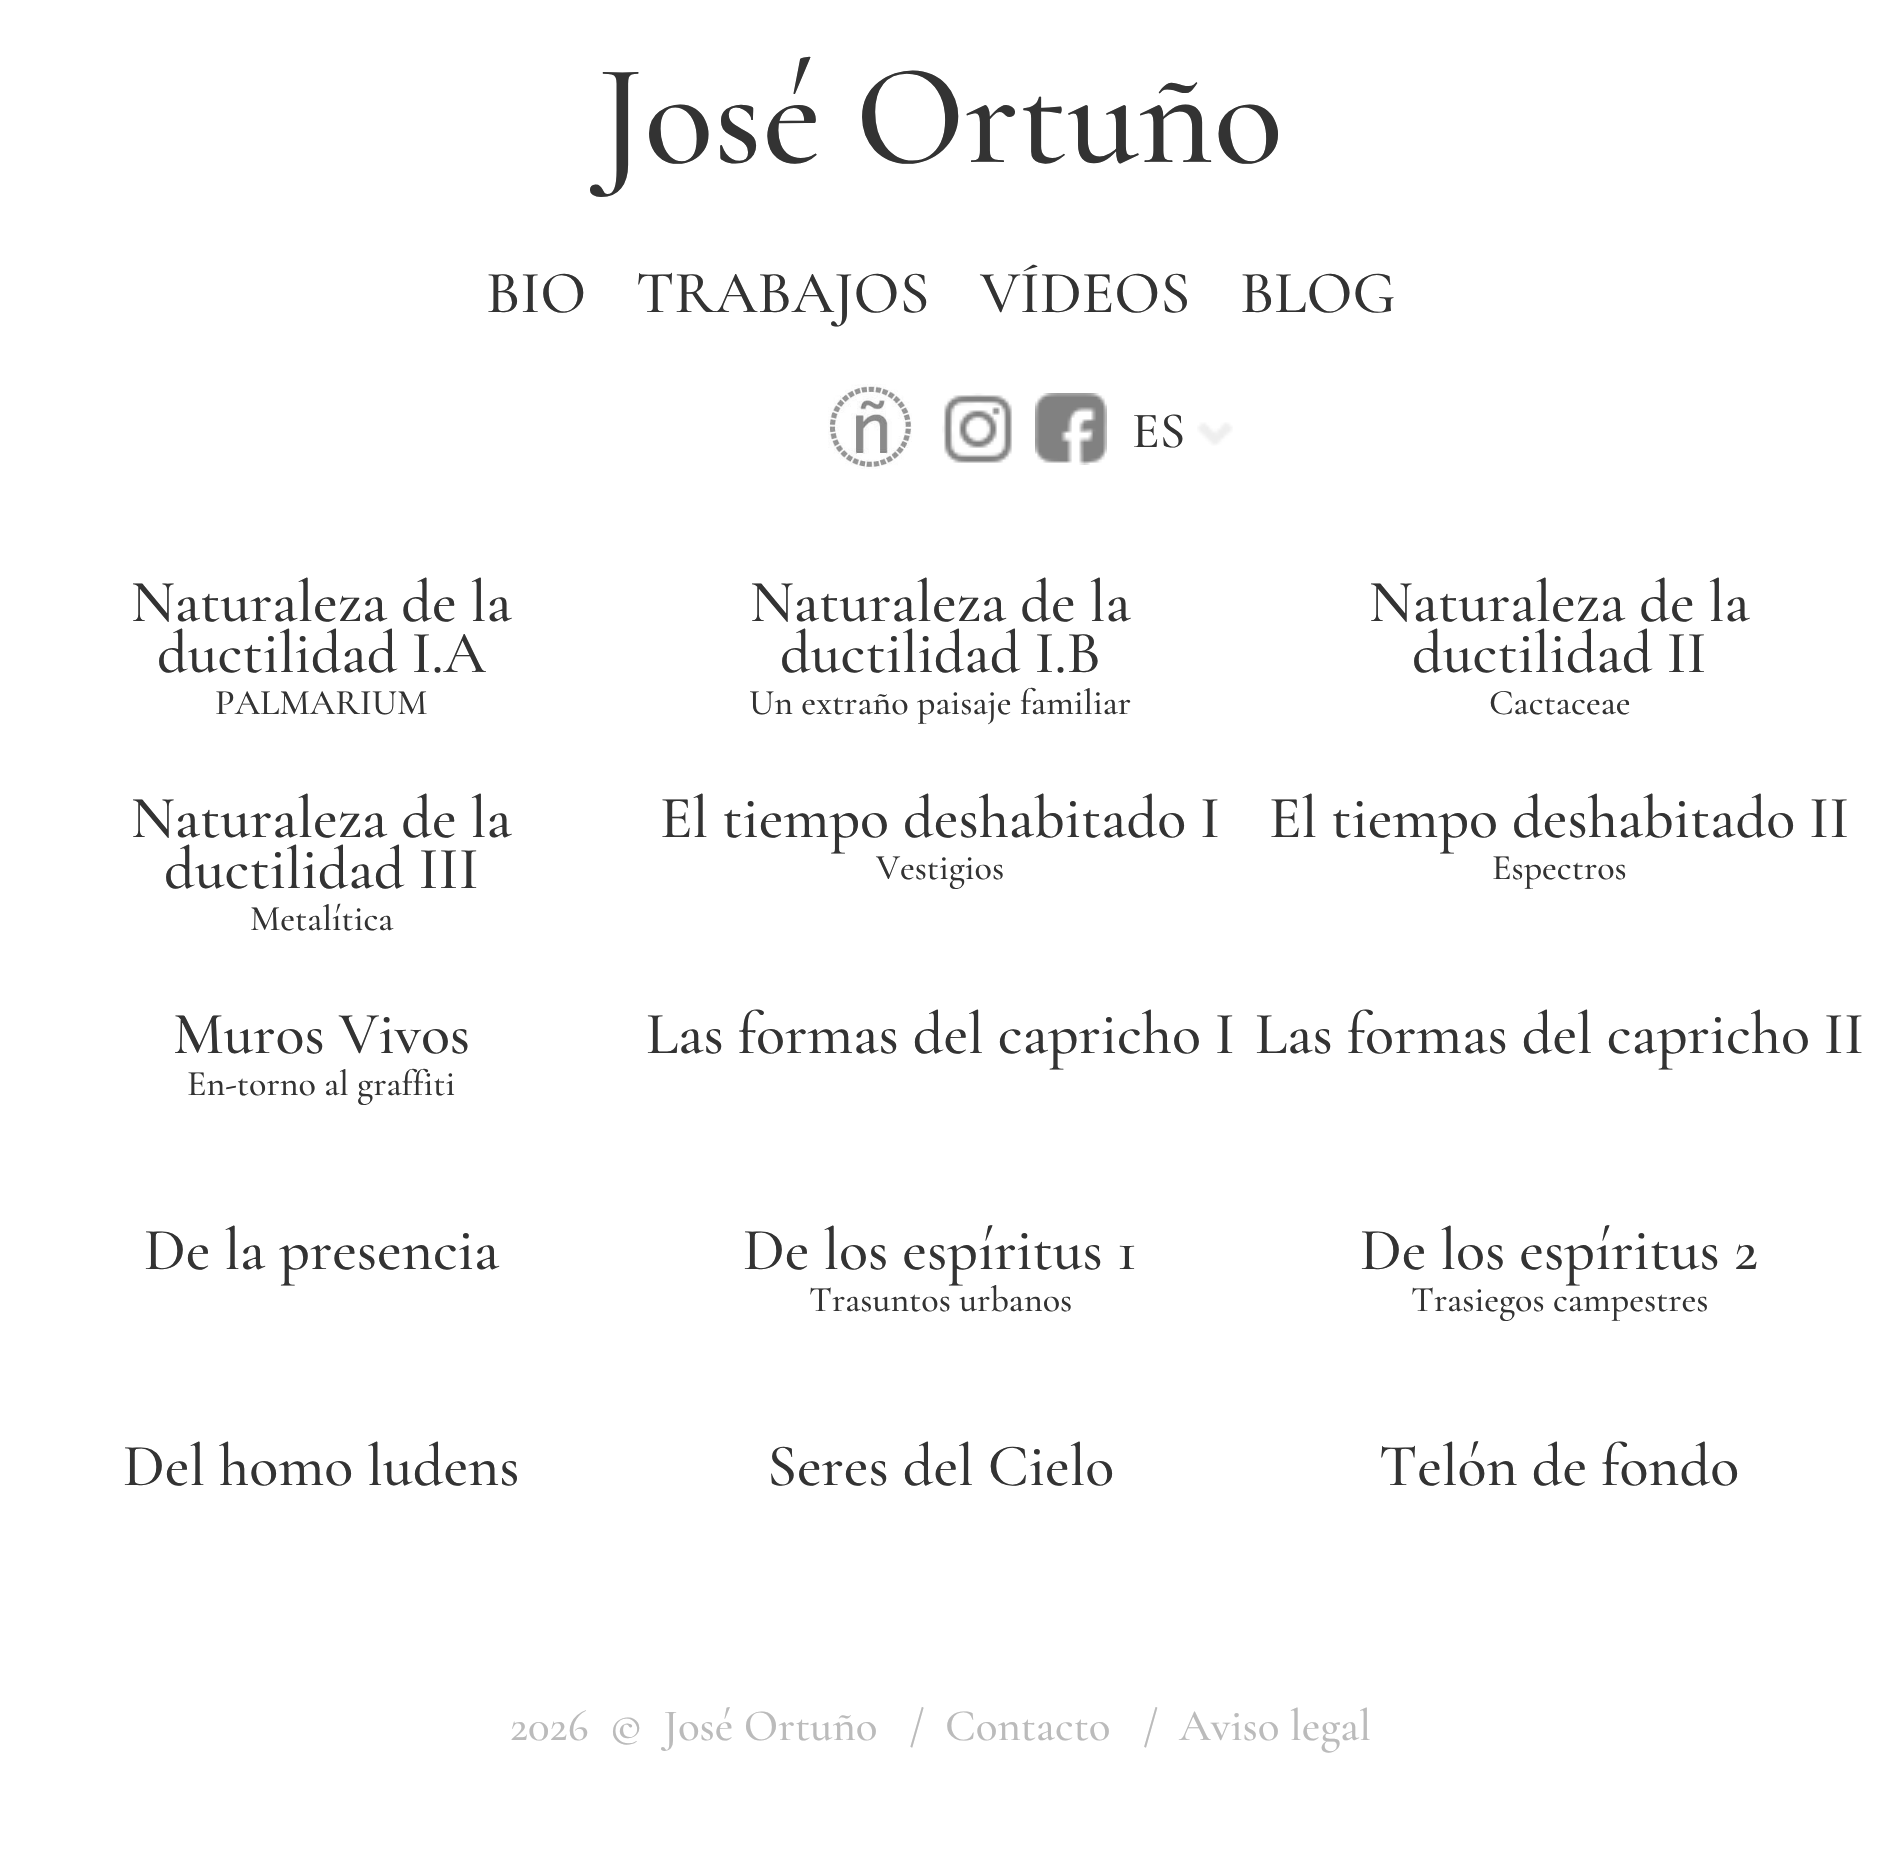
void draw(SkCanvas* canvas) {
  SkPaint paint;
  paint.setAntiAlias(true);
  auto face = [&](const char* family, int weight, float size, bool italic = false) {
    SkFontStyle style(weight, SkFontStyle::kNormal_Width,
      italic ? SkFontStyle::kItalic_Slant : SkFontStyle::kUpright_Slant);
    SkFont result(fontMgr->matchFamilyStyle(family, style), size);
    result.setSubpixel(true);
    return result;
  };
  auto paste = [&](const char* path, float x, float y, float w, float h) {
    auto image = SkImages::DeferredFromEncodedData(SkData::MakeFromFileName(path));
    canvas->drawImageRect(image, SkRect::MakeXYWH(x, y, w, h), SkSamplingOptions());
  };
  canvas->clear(0xffffffff);
  paste("img/1.png", 828, 384, 84, 85);
  paste("img/2.png", 942, 393, 70, 70);
  paste("img/3.png", 1035, 393, 72, 72);
  paste("img/4.png", 1197, 422, 36, 24);
  auto f0 = face("Cormorant", 300, 144);
  paint.setColor(0xff333333);
  canvas->drawString("José Ortuño", 597, 162, f0, paint);
  auto f1 = face("Cormorant Garamond", 300, 60);
  {
    const struct { const char* s; float x, y; } items[] = {
      {"BIO", 486, 312},
      {"TRABAJOS", 636, 312},
      {"VÍDEOS", 980, 312},
      {"BLOG", 1240, 312},
    };
    for (auto [s, x, y] : items) {
      canvas->drawString(s, x, y, f1, paint);
    }
  }
  auto f2 = face("Cormorant Garamond", 300, 51);
  canvas->drawString("ES", 1132, 447, f2, paint);
  canvas->drawString("Naturaleza de la", 131, 621, f1, paint);
  canvas->drawString("ductilidad I.A", 157, 672, f1, paint);
  auto f3 = face("Cormorant Garamond", 300, 36);
  canvas->drawString("PALMARIUM", 215, 714, f3, paint);
  canvas->drawString("Naturaleza de la", 750, 621, f1, paint);
  canvas->drawString("ductilidad I.B", 780, 672, f1, paint);
  canvas->drawString("Un extraño paisaje familiar", 749, 714, f3, paint);
  canvas->drawString("Naturaleza de la", 1369, 621, f1, paint);
  canvas->drawString("ductilidad II", 1412, 672, f1, paint);
  canvas->drawString("Cactaceae", 1489, 714, f3, paint);
  canvas->drawString("Naturaleza de la", 131, 837, f1, paint);
  canvas->drawString("ductilidad III", 164, 888, f1, paint);
  canvas->drawString("Metalítica", 250, 930, f3, paint);
  canvas->drawString("El tiempo deshabitado I", 660, 837, f1, paint);
  canvas->drawString("Vestigios", 876, 879, f3, paint);
  canvas->drawString("El tiempo deshabitado II", 1269, 837, f1, paint);
  canvas->drawString("Espectros", 1492, 879, f3, paint);
  canvas->drawString("Muros Vivos", 173, 1053, f1, paint);
  canvas->drawString("En-torno al graffiti", 187, 1095, f3, paint);
  {
    const struct { const char* s; float x, y; } items[] = {
      {"Las formas del capricho I", 646, 1053},
      {"Las formas del capricho II", 1255, 1053},
      {"De la presencia", 144, 1269},
      {"De los espíritus 1", 743, 1269},
    };
    for (auto [s, x, y] : items) {
      canvas->drawString(s, x, y, f1, paint);
    }
  }
  canvas->drawString("Trasuntos urbanos", 809, 1311, f3, paint);
  canvas->drawString("De los espíritus 2", 1360, 1269, f1, paint);
  canvas->drawString("Trasiegos campestres", 1411, 1311, f3, paint);
  {
    const struct { const char* s; float x, y; } items[] = {
      {"Del homo ludens", 123, 1485},
      {"Seres del Cielo", 767, 1485},
      {"Telón de fondo", 1379, 1485},
    };
    for (auto [s, x, y] : items) {
      canvas->drawString(s, x, y, f1, paint);
    }
  }
  auto f4 = face("Cormorant Garamond", 300, 45);
  paint.setColor(0xffbbbbbb);
  {
    const struct { const char* s; float x, y; } items[] = {
      {"2026  ©  José Ortuño   /", 510, 1740},
      {"Contacto", 945, 1740},
      {"/", 1143, 1740},
      {"Aviso legal", 1179, 1740},
    };
    for (auto [s, x, y] : items) {
      canvas->drawString(s, x, y, f4, paint);
    }
  }
}
